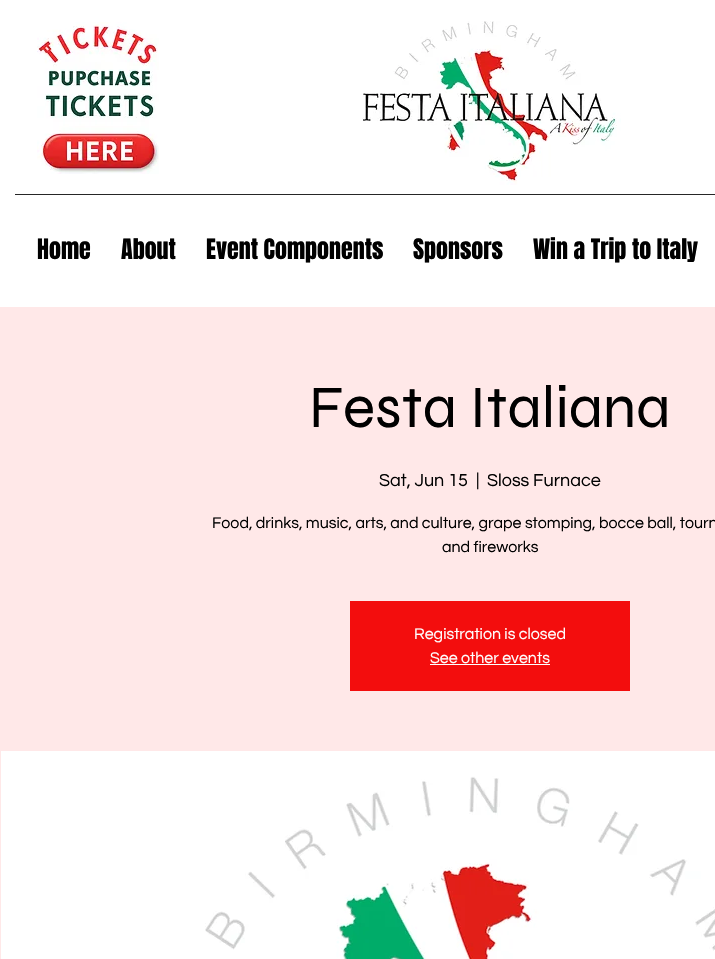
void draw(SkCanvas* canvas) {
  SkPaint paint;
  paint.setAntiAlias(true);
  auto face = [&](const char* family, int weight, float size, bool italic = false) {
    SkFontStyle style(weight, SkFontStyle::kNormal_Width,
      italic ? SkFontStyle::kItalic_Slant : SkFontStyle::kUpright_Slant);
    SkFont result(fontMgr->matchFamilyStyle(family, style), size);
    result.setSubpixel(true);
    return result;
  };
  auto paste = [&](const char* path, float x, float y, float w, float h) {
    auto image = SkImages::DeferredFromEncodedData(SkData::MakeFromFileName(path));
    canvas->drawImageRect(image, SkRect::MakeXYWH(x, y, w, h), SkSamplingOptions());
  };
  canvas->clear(0xffffffff);
  paste("img/1.png", 37, 22, 122, 152);
  paste("img/2.png", 362, 21, 259, 164);
  {
    const struct { float x, y, w, h; SkColor color; } items[] = {
      {15, 194, 700, 1, 0xff262626},
      {0, 307, 715, 652, 0xffffe8e8},
      {350, 601, 280, 90, 0xfff30d0d},
      {430, 664, 120, 1, 0xffffffff},
    };
    for (auto [x, y, w, h, color] : items) {
      paint.setColor(color);
      canvas->drawRect(SkRect::MakeXYWH(x, y, w, h), paint);
    }
  }
  paste("img/3.png", 1, 751, 714, 208);
  auto f0 = face("Anton", 400, 24);
  paint.setColor(0xff000000);
  {
    const struct { const char* s; float x, y; } items[] = {
      {"Home", 37, 259},
      {"About", 121, 259},
      {"Event Components", 206, 259},
      {"Sponsors", 413, 259},
      {"Win a Trip to Italy", 533, 259},
    };
    for (auto [s, x, y] : items) {
      canvas->drawString(s, x, y, f0, paint);
    }
  }
  auto f1 = face("Syne", 400, 60);
  canvas->drawString("Festa Italiana", 309, 427, f1, paint);
  auto f2 = face("Questrial", 400, 18);
  {
    const struct { const char* s; float x, y; } items[] = {
      {"Sat, Jun 15", 379, 486},
      {"|", 476, 486},
      {"Sloss Furnace", 487, 486},
    };
    for (auto [s, x, y] : items) {
      canvas->drawString(s, x, y, f2, paint);
    }
  }
  auto f3 = face("Questrial", 400, 16);
  canvas->drawString("Food, drinks, music, arts, and culture, grape stomping, bocce ball, tourn", 212, 528, f3, paint);
  canvas->drawString("and fireworks", 442, 552, f3, paint);
  paint.setColor(0xffffffff);
  canvas->drawString("Registration is closed", 414, 639, f3, paint);
  canvas->drawString("See other events", 430, 663, f3, paint);
}
